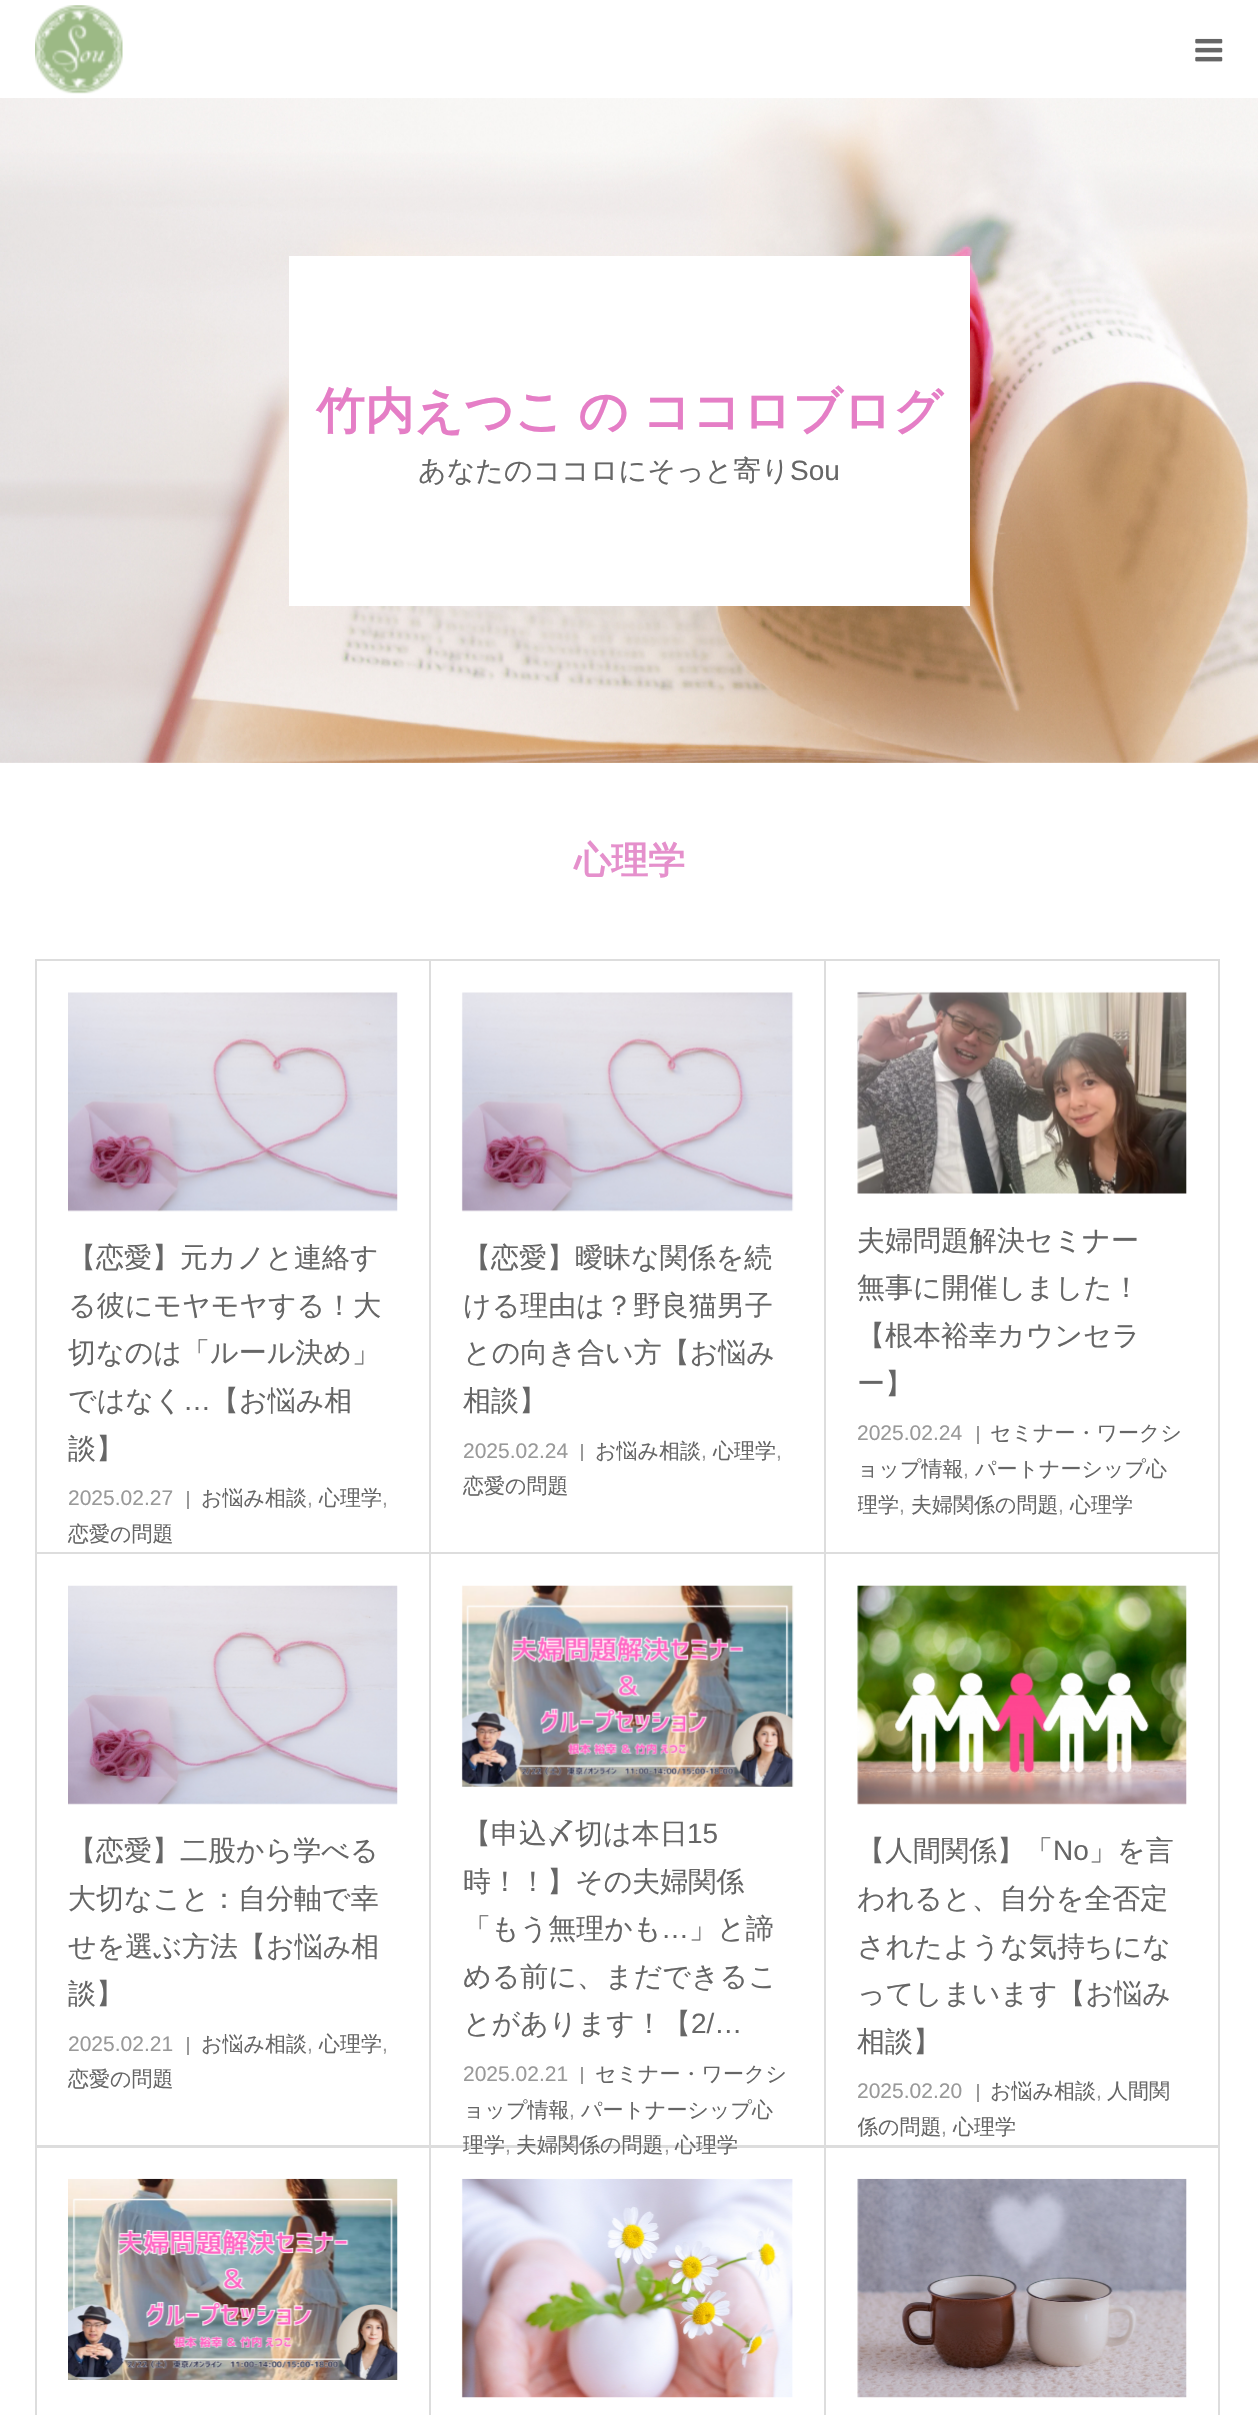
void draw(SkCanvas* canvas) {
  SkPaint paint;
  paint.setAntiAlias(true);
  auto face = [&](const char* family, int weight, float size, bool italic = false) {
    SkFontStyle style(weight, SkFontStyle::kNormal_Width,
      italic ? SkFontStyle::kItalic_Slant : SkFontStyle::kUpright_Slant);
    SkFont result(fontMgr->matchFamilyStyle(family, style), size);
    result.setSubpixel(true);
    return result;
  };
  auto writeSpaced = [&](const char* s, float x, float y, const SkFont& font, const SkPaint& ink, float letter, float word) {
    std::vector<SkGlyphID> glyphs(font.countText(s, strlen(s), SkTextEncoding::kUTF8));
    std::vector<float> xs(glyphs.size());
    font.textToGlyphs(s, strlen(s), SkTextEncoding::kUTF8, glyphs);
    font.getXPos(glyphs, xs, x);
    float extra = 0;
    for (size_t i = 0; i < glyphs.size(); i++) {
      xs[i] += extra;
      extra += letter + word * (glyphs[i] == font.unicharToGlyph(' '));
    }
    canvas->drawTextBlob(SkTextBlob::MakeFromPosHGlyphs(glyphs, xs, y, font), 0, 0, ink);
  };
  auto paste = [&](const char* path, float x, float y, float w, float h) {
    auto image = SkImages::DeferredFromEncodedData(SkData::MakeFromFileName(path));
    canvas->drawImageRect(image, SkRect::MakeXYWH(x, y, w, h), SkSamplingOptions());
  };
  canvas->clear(0xffffffff);
  paste("img/1.png", 35, 5, 88, 89);
  paste("img/2.png", 1195, 38, 28, 24);
  paste("img/3.png", 0, 98, 1258, 665);
  paint.setColor(0xffffffff);
  canvas->drawRect(SkRect::MakeXYWH(289, 256, 681, 350), paint);
  paint.setStroke(true);
  paint.setStrokeWidth(2);
  paint.setColor(0xffdddddd);
  canvas->drawRect(SkRect::MakeXYWH(36, 960, 394, 593), paint);
  paste("img/4.png", 68, 992, 330, 220);
  paint.setStroke(false);
  paint.setColor(0xff999999);
  canvas->drawRect(SkRect::MakeXYWH(187, 1491, 2, 18), paint);
  paint.setStroke(true);
  paint.setColor(0xffdddddd);
  canvas->drawRect(SkRect::MakeXYWH(430, 960, 395, 593), paint);
  paste("img/5.png", 461, 992, 333, 220);
  paint.setStroke(false);
  paint.setColor(0xff999999);
  canvas->drawRect(SkRect::MakeXYWH(581, 1444, 2, 17), paint);
  paint.setStroke(true);
  paint.setColor(0xffdddddd);
  canvas->drawRect(SkRect::MakeXYWH(825, 960, 394, 593), paint);
  paste("img/6.png", 857, 991, 330, 203);
  paint.setStroke(false);
  paint.setColor(0xff999999);
  canvas->drawRect(SkRect::MakeXYWH(977, 1426, 2, 18), paint);
  paint.setStroke(true);
  paint.setColor(0xffdddddd);
  canvas->drawRect(SkRect::MakeXYWH(36, 1553, 394, 593), paint);
  paste("img/7.png", 68, 1585, 330, 220);
  paint.setStroke(false);
  paint.setColor(0xff999999);
  canvas->drawRect(SkRect::MakeXYWH(187, 2037, 2, 18), paint);
  paint.setStroke(true);
  paint.setColor(0xffdddddd);
  canvas->drawRect(SkRect::MakeXYWH(430, 1553, 395, 593), paint);
  paste("img/8.png", 461, 1585, 333, 202);
  paint.setStroke(false);
  paint.setColor(0xff999999);
  canvas->drawRect(SkRect::MakeXYWH(581, 2067, 2, 17), paint);
  paint.setStroke(true);
  paint.setColor(0xffdddddd);
  canvas->drawRect(SkRect::MakeXYWH(825, 1553, 394, 593), paint);
  paste("img/9.png", 857, 1585, 330, 220);
  paint.setStroke(false);
  paint.setColor(0xff999999);
  canvas->drawRect(SkRect::MakeXYWH(977, 2084, 2, 18), paint);
  paint.setStroke(true);
  paint.setColor(0xffdddddd);
  canvas->drawRect(SkRect::MakeXYWH(36, 2147, 394, 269), paint);
  paste("img/10.png", 68, 2178, 330, 202);
  canvas->drawRect(SkRect::MakeXYWH(430, 2147, 395, 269), paint);
  paste("img/11.png", 461, 2178, 332, 220);
  canvas->drawRect(SkRect::MakeXYWH(825, 2147, 394, 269), paint);
  paste("img/12.png", 857, 2178, 330, 220);
  auto f0 = face("WenQuanYi Zen Hei", 700, 49);
  paint.setStroke(false);
  paint.setColor(0xffe57ec6);
  writeSpaced("竹内えつこ の ココロブログ", 316, 428, f0, paint, 0, -1);
  auto f1 = face("WenQuanYi Zen Hei", 500, 28);
  paint.setColor(0xff666666);
  canvas->drawString("あなたのココロにそっと寄り", 418, 480, f1, paint);
  auto f2 = face("Liberation Sans", 400, 28);
  canvas->drawString("Sou", 790, 480, f2, paint);
  auto f3 = face("WenQuanYi Zen Hei", 700, 37);
  paint.setColor(0xffe590cc);
  canvas->drawString("心理学", 574, 873, f3, paint);
  paint.setColor(0xff666666);
  {
    const struct { const char* s; float x, y; } items[] = {
      {"【恋愛】元カノと連絡す", 68, 1267},
      {"る彼にモヤモヤする！大", 68, 1315},
      {"切なのは「ルール決め」", 68, 1362},
      {"ではなく", 68, 1410},
    };
    for (auto [s, x, y] : items) {
      canvas->drawString(s, x, y, f1, paint);
    }
  }
  canvas->drawString("…", 183, 1410, f2, paint);
  canvas->drawString("【お悩み相", 211, 1410, f1, paint);
  canvas->drawString("談】", 68, 1458, f1, paint);
  auto f4 = face("Liberation Sans", 400, 21);
  paint.setColor(0xff999999);
  canvas->drawString("2025.02.27", 68, 1505, f4, paint);
  auto f5 = face("WenQuanYi Zen Hei", 500, 21);
  paint.setColor(0xff666666);
  canvas->drawString("お悩み相談", 201, 1505, f5, paint);
  paint.setColor(0xff999999);
  canvas->drawString(",", 307, 1505, f4, paint);
  paint.setColor(0xff666666);
  canvas->drawString("心理学", 319, 1505, f5, paint);
  paint.setColor(0xff999999);
  canvas->drawString(",", 382, 1505, f4, paint);
  paint.setColor(0xff666666);
  canvas->drawString("恋愛の問題", 68, 1541, f5, paint);
  {
    const struct { const char* s; float x, y; } items[] = {
      {"【恋愛】曖昧な関係を続", 463, 1267},
      {"ける理由は？野良猫男子", 463, 1315},
      {"との向き合い方【お悩み", 463, 1362},
      {"相談】", 463, 1410},
    };
    for (auto [s, x, y] : items) {
      canvas->drawString(s, x, y, f1, paint);
    }
  }
  paint.setColor(0xff999999);
  canvas->drawString("2025.02.24", 463, 1458, f4, paint);
  paint.setColor(0xff666666);
  canvas->drawString("お悩み相談", 595, 1458, f5, paint);
  paint.setColor(0xff999999);
  canvas->drawString(",", 701, 1458, f4, paint);
  paint.setColor(0xff666666);
  canvas->drawString("心理学", 713, 1458, f5, paint);
  paint.setColor(0xff999999);
  canvas->drawString(",", 776, 1458, f4, paint);
  paint.setColor(0xff666666);
  canvas->drawString("恋愛の問題", 463, 1493, f5, paint);
  {
    const struct { const char* s; float x, y; } items[] = {
      {"夫婦問題解決セミナー", 857, 1250},
      {"無事に開催しました！", 857, 1297},
      {"【根本裕幸カウンセラ", 857, 1345},
      {"ー】", 857, 1393},
    };
    for (auto [s, x, y] : items) {
      canvas->drawString(s, x, y, f1, paint);
    }
  }
  paint.setColor(0xff999999);
  canvas->drawString("2025.02.24", 857, 1440, f4, paint);
  paint.setColor(0xff666666);
  canvas->drawString("セミナー・ワークシ", 990, 1440, f5, paint);
  canvas->drawString("ョップ情報", 857, 1476, f5, paint);
  paint.setColor(0xff999999);
  canvas->drawString(",", 963, 1476, f4, paint);
  paint.setColor(0xff666666);
  canvas->drawString("パートナーシップ心", 975, 1476, f5, paint);
  canvas->save();
  canvas->clipRect(SkRect::MakeXYWH(858, 1416, 329, 105));
  canvas->drawString("理学", 857, 1512, f5, paint);
  canvas->restore();
  paint.setColor(0xff999999);
  canvas->drawString(",", 899, 1512, f4, paint);
  paint.setColor(0xff666666);
  canvas->drawString("夫婦関係の問題", 911, 1512, f5, paint);
  paint.setColor(0xff999999);
  canvas->drawString(",", 1058, 1512, f4, paint);
  paint.setColor(0xff666666);
  canvas->drawString("心理学", 1070, 1512, f5, paint);
  {
    const struct { const char* s; float x, y; } items[] = {
      {"【恋愛】二股から学べる", 68, 1860},
      {"大切なこと：自分軸で幸", 68, 1908},
      {"せを選ぶ方法【お悩み相", 68, 1956},
      {"談】", 68, 2003},
    };
    for (auto [s, x, y] : items) {
      canvas->drawString(s, x, y, f1, paint);
    }
  }
  paint.setColor(0xff999999);
  canvas->drawString("2025.02.21", 68, 2051, f4, paint);
  paint.setColor(0xff666666);
  canvas->drawString("お悩み相談", 201, 2051, f5, paint);
  paint.setColor(0xff999999);
  canvas->drawString(",", 307, 2051, f4, paint);
  paint.setColor(0xff666666);
  canvas->drawString("心理学", 319, 2051, f5, paint);
  paint.setColor(0xff999999);
  canvas->drawString(",", 382, 2051, f4, paint);
  paint.setColor(0xff666666);
  canvas->drawString("恋愛の問題", 68, 2086, f5, paint);
  canvas->drawString("【申込〆切は本日", 463, 1843, f1, paint);
  canvas->drawString("15", 687, 1843, f2, paint);
  canvas->drawString("時！！】その夫婦関係", 463, 1891, f1, paint);
  canvas->drawString("「もう無理かも", 463, 1938, f1, paint);
  canvas->drawString("…", 661, 1938, f2, paint);
  {
    const struct { const char* s; float x, y; } items[] = {
      {"」と諦", 689, 1938},
      {"める前に、まだできるこ", 463, 1986},
      {"とがあります！【", 463, 2033},
    };
    for (auto [s, x, y] : items) {
      canvas->drawString(s, x, y, f1, paint);
    }
  }
  canvas->drawString("2/…", 691, 2033, f2, paint);
  paint.setColor(0xff999999);
  canvas->drawString("2025.02.21", 463, 2081, f4, paint);
  paint.setColor(0xff666666);
  canvas->drawString("セミナー・ワークシ", 595, 2081, f5, paint);
  canvas->drawString("ョップ情報", 463, 2117, f5, paint);
  paint.setColor(0xff999999);
  canvas->drawString(",", 569, 2117, f4, paint);
  paint.setColor(0xff666666);
  canvas->drawString("パートナーシップ心", 581, 2117, f5, paint);
  canvas->drawString("理学", 463, 2152, f5, paint);
  paint.setColor(0xff999999);
  canvas->drawString(",", 505, 2152, f4, paint);
  paint.setColor(0xff666666);
  canvas->drawString("夫婦関係の問題", 516, 2152, f5, paint);
  paint.setColor(0xff999999);
  canvas->drawString(",", 664, 2152, f4, paint);
  paint.setColor(0xff666666);
  canvas->drawString("心理学", 675, 2152, f5, paint);
  canvas->drawString("【人間関係】「", 857, 1860, f1, paint);
  canvas->drawString("No", 1053, 1860, f2, paint);
  {
    const struct { const char* s; float x, y; } items[] = {
      {"」を言", 1089, 1860},
      {"われると、自分を全否定", 857, 1908},
      {"されたような気持ちにな", 857, 1956},
      {"ってしまいます【お悩み", 857, 2003},
      {"相談】", 857, 2051},
    };
    for (auto [s, x, y] : items) {
      canvas->drawString(s, x, y, f1, paint);
    }
  }
  paint.setColor(0xff999999);
  canvas->drawString("2025.02.20", 857, 2098, f4, paint);
  paint.setColor(0xff666666);
  canvas->drawString("お悩み相談", 990, 2098, f5, paint);
  paint.setColor(0xff999999);
  canvas->drawString(",", 1096, 2098, f4, paint);
  paint.setColor(0xff666666);
  canvas->drawString("人間関", 1107, 2098, f5, paint);
  canvas->save();
  canvas->clipRect(SkRect::MakeXYWH(858, 2074, 329, 72));
  canvas->drawString("係の問題", 857, 2134, f5, paint);
  canvas->restore();
  paint.setColor(0xff999999);
  canvas->drawString(",", 941, 2134, f4, paint);
  paint.setColor(0xff666666);
  canvas->drawString("心理学", 953, 2134, f5, paint);
}
